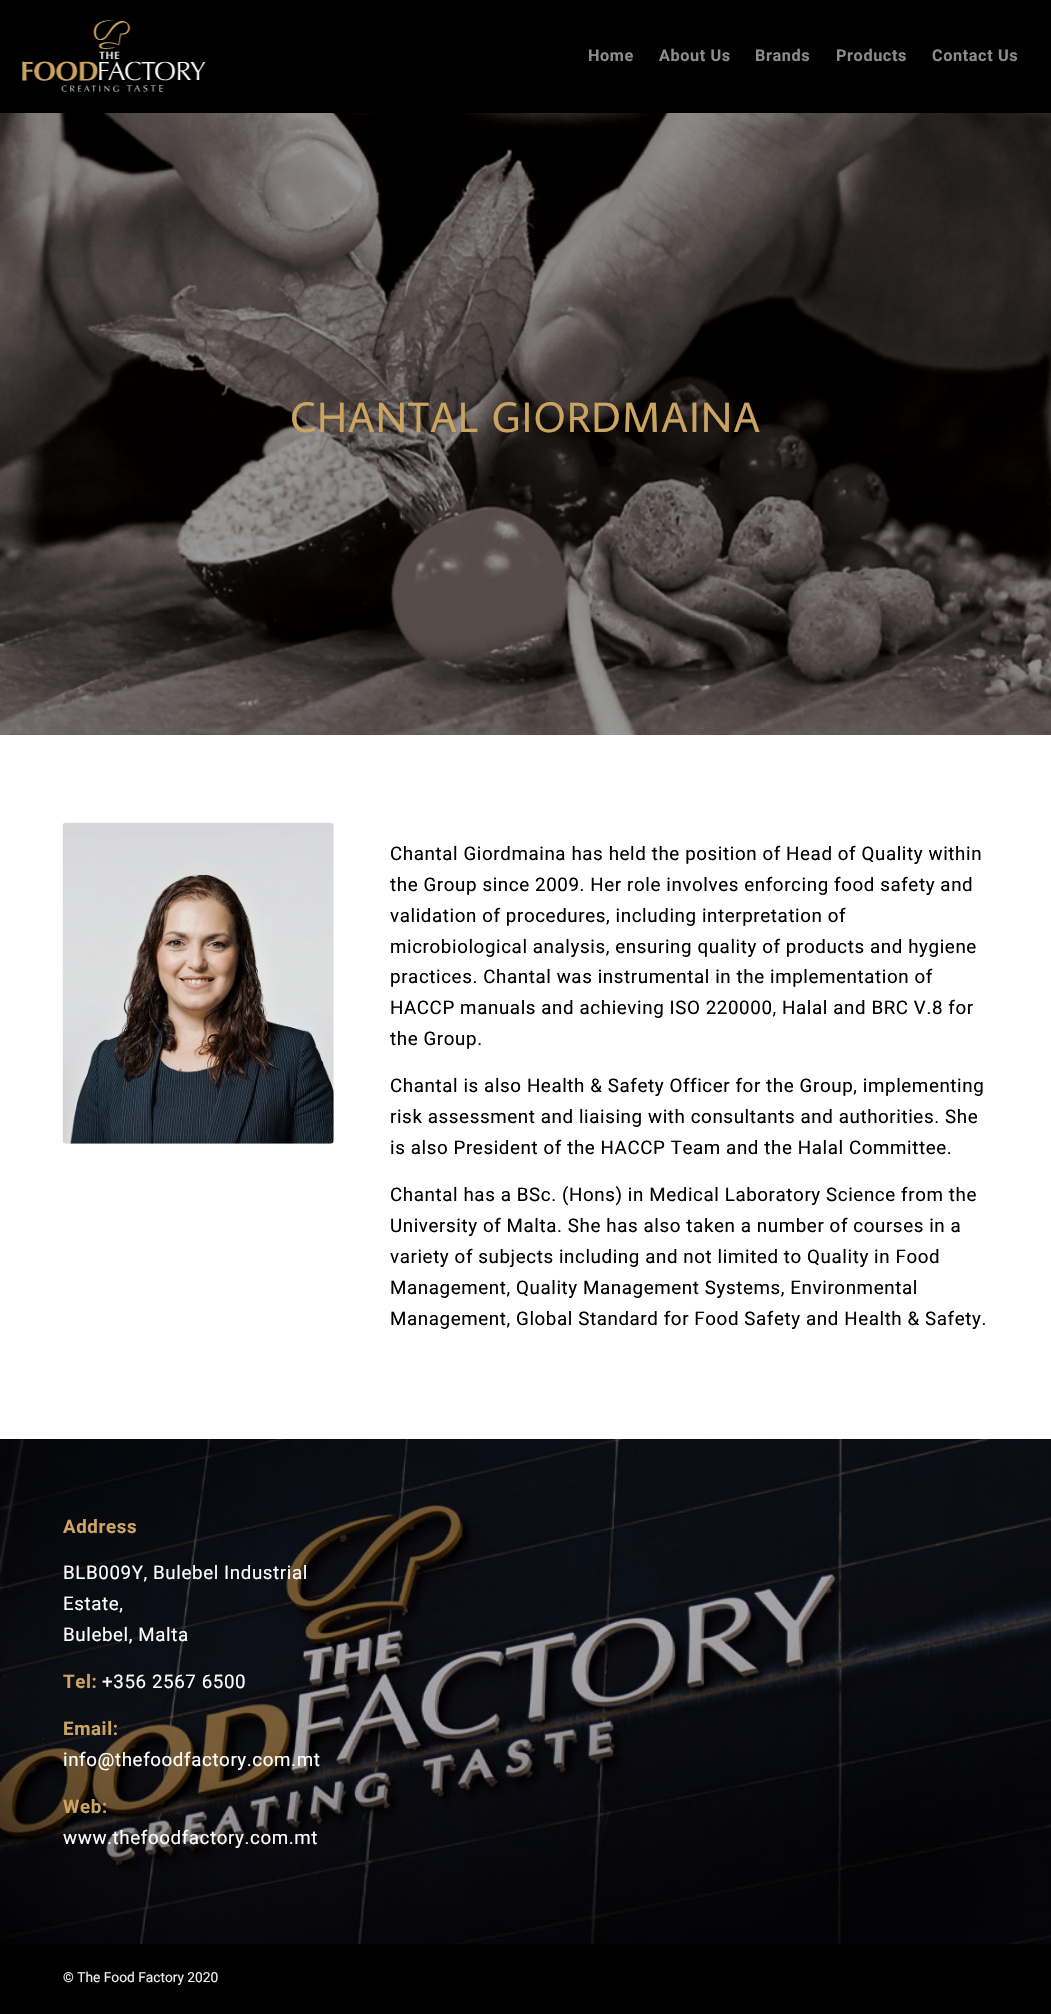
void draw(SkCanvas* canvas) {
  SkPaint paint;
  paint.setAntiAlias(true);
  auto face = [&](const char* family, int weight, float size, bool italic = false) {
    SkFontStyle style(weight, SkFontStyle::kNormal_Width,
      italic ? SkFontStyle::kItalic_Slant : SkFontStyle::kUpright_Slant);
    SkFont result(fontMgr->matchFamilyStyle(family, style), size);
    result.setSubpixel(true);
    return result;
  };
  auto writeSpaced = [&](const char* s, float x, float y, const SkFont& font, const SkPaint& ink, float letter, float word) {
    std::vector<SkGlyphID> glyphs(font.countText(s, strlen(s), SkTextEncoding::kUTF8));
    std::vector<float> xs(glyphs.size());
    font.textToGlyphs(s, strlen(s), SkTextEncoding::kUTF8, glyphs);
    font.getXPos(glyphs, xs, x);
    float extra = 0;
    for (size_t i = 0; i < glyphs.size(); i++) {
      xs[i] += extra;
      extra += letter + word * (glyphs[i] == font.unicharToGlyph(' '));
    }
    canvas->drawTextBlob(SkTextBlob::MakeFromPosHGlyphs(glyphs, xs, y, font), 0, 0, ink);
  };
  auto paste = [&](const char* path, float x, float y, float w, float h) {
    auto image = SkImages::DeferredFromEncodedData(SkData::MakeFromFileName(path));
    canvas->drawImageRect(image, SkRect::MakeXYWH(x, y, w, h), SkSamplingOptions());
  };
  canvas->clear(0xff000000);
  paste("img/1.png", 22, 20, 184, 72);
  paste("img/2.png", 0, 113, 1051, 622);
  paint.setColor(0xffffffff);
  canvas->drawRect(SkRect::MakeXYWH(0, 735, 1051, 704), paint);
  paste("img/3.png", 62, 822, 272, 322);
  paste("img/4.png", 0, 1439, 1051, 505);
  auto f0 = face("Roboto", 700, 16.25f);
  paint.setColor(0xff8c8c8c);
  {
    const struct { const char* s; float x, y; } items[] = {
      {"Home", 588, 61},
      {"About Us", 659, 61},
      {"Brands", 755, 61},
      {"Products", 836, 61},
      {"Contact Us", 932, 61},
    };
    for (auto [s, x, y] : items) {
      writeSpaced(s, x, y, f0, paint, 0.6f, 0);
    }
  }
  auto f1 = face("Average Sans", 400, 42.5f);
  paint.setColor(0xffcca461);
  writeSpaced("CHANTAL GIORDMAINA", 290, 432, f1, paint, 1.25f, 0);
  auto f2 = face("Roboto", 400, 18.75f);
  paint.setColor(0xff000000);
  {
    const struct { const char* s; float x, y; } items[] = {
      {"Chantal Giordmaina has held the position of Head of Quality within", 390, 860},
      {"the Group since 2009. Her role involves enforcing food safety and", 390, 891},
      {"validation of procedures, including interpretation of", 390, 922},
      {"microbiological analysis, ensuring quality of products and hygiene", 390, 953},
      {"practices. Chantal was instrumental in the implementation of", 390, 983},
      {"HACCP manuals and achieving ISO 220000, Halal and BRC V.8 for", 390, 1014},
      {"the Group.", 390, 1045},
      {"Chantal is also Health & Safety Officer for the Group, implementing", 390, 1092},
      {"risk assessment and liaising with consultants and authorities. She", 390, 1123},
      {"is also President of the HACCP Team and the Halal Committee.", 390, 1154},
      {"Chantal has a BSc. (Hons) in Medical Laboratory Science from the", 390, 1201},
      {"University of Malta. She has also taken a number of courses in a", 390, 1232},
      {"variety of subjects including and not limited to Quality in Food", 390, 1263},
      {"Management, Quality Management Systems, Environmental", 390, 1294},
      {"Management, Global Standard for Food Safety and Health & Safety.", 390, 1325},
    };
    for (auto [s, x, y] : items) {
      writeSpaced(s, x, y, f2, paint, 0.6f, 0);
    }
  }
  auto f3 = face("Roboto", 700, 18.75f);
  paint.setColor(0xffcca461);
  writeSpaced("Address", 63, 1533, f3, paint, 0.6f, 0);
  paint.setColor(0xffffffff);
  {
    const struct { const char* s; float x, y; } items[] = {
      {"BLB009Y, Bulebel Industrial", 63, 1579},
      {"Estate,", 63, 1610},
      {"Bulebel, Malta", 63, 1641},
    };
    for (auto [s, x, y] : items) {
      writeSpaced(s, x, y, f2, paint, 0.6f, 0);
    }
  }
  paint.setColor(0xffcca461);
  writeSpaced("Tel:", 63, 1688, f3, paint, 0.6f, 0);
  paint.setColor(0xffffffff);
  writeSpaced("+356 2567 6500", 102, 1688, f2, paint, 0.6f, 0);
  paint.setColor(0xffcca461);
  writeSpaced("Email:", 63, 1735, f3, paint, 0.6f, 0);
  paint.setColor(0xffffffff);
  writeSpaced("info@thefoodfactory.com.mt", 63, 1766, f2, paint, 0.6f, 0);
  paint.setColor(0xffcca461);
  writeSpaced("Web:", 63, 1813, f3, paint, 0.6f, 0);
  paint.setColor(0xffffffff);
  writeSpaced("www.thefoodfactory.com.mt", 63, 1844, f2, paint, 0.6f, 0);
  auto f4 = face("Roboto", 400, 13.75f);
  paint.setColor(0xffeeeeee);
  canvas->drawString("© The Food Factory 2020", 63, 1982, f4, paint);
}
